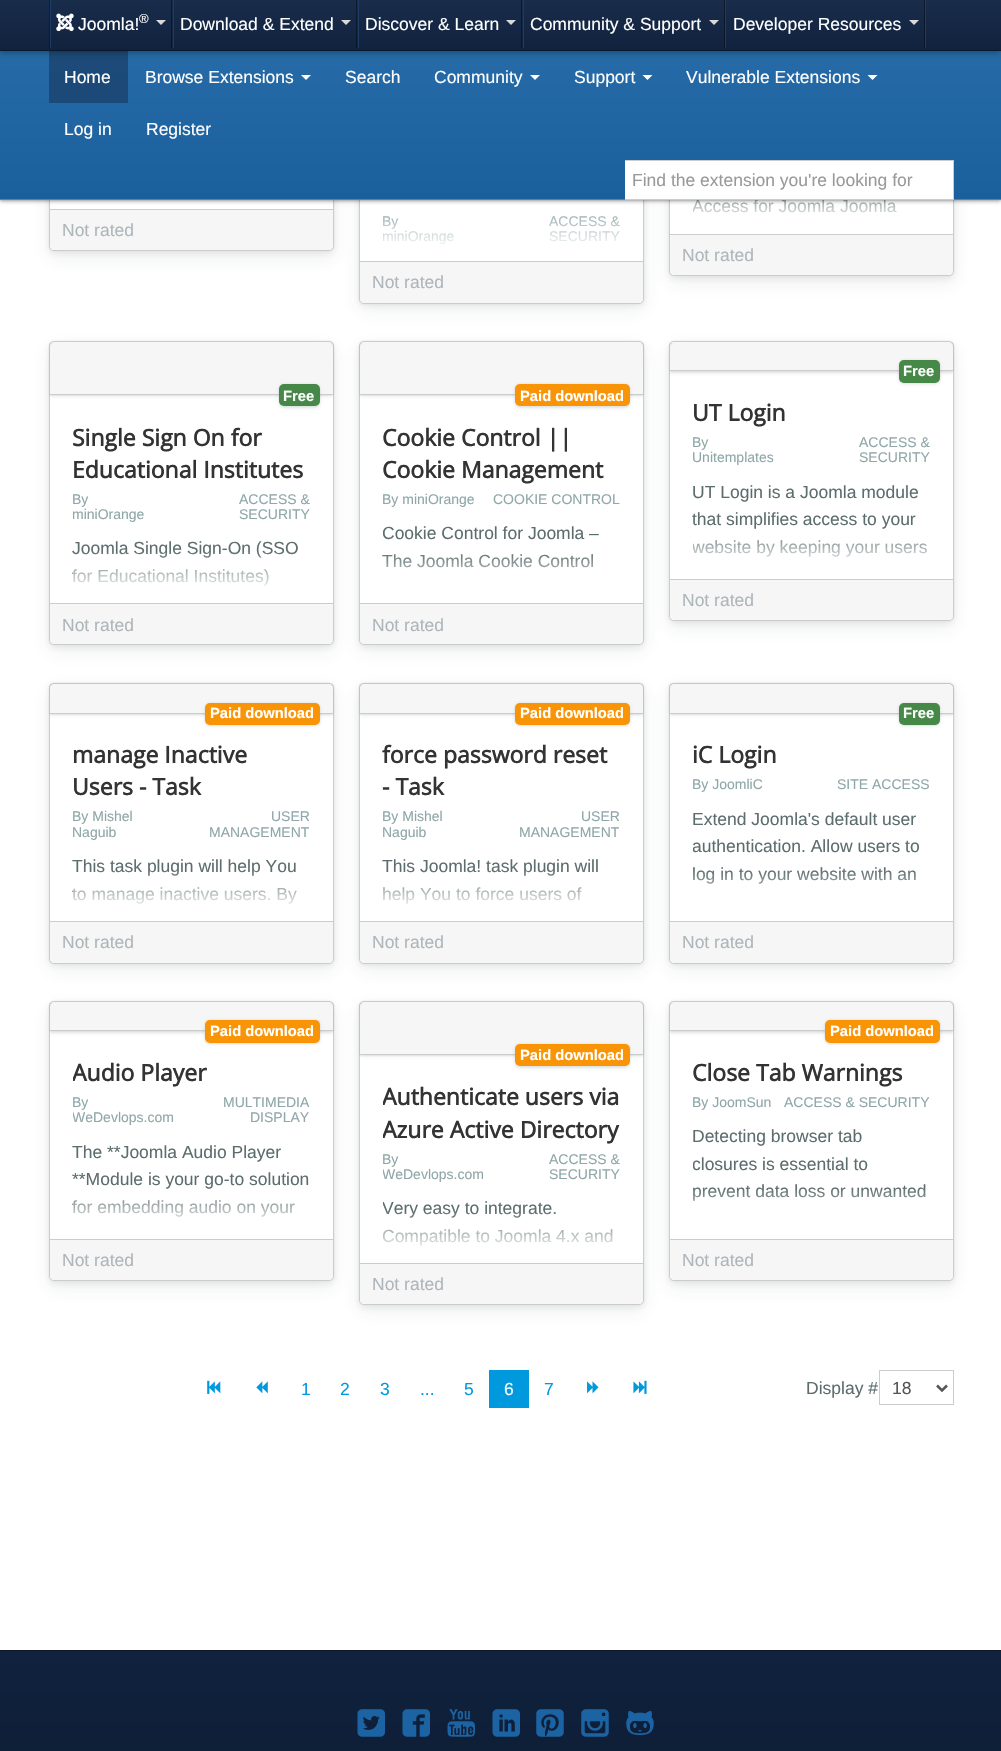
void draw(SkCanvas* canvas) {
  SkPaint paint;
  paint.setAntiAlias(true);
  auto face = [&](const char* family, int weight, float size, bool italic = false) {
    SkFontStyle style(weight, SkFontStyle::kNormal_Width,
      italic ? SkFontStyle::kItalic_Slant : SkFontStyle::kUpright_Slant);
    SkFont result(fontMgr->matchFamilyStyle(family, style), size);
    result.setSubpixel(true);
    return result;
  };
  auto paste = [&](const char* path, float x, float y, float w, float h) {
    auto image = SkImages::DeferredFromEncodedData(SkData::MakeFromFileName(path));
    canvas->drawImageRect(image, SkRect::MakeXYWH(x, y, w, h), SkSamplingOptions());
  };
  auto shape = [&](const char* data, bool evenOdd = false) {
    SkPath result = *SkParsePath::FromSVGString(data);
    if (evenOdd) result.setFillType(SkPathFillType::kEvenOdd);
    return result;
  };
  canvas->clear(0xffffffff);
  paint.setColor(0x14343a43);
  paint.setMaskFilter(SkMaskFilter::MakeBlur(kNormal_SkBlurStyle, 9.5f));
  canvas->drawRoundRect(SkRect::MakeXYWH(49, -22, 285, 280), 5, 5, paint);
  paint.setMaskFilter(nullptr);
  paint.setMaskFilter(SkMaskFilter::MakeBlur(kNormal_SkBlurStyle, 3));
  canvas->drawRoundRect(SkRect::MakeXYWH(49, -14, 285, 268), 5, 5, paint);
  paint.setMaskFilter(nullptr);
  paint.setColor(0x1a343a43);
  paint.setMaskFilter(SkMaskFilter::MakeBlur(kNormal_SkBlurStyle, 1));
  canvas->drawRoundRect(SkRect::MakeXYWH(49, -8, 285, 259), 5, 5, paint);
  paint.setMaskFilter(nullptr);
  paint.setColor(0xffffffff);
  canvas->drawRoundRect(SkRect::MakeXYWH(49.5f, -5.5f, 284, 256), 4.5f, 4.5f, paint);
  paint.setStroke(true);
  paint.setStrokeWidth(1);
  paint.setColor(0xffcccccc);
  canvas->drawRoundRect(SkRect::MakeXYWH(49.5f, -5.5f, 284, 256), 4.5f, 4.5f, paint);
  paint.setStroke(false);
  paint.setColor(0xfff6f6f6);
  canvas->drawPath(shape("M50 209H333V246C333 248 331 250 329 250H54C52 250 50 248 50 246Z"), paint);
  paint.setColor(0xffcccccc);
  canvas->drawRect(SkRect::MakeXYWH(50, 209, 283, 1), paint);
  paint.setColor(0x14343a43);
  paint.setMaskFilter(SkMaskFilter::MakeBlur(kNormal_SkBlurStyle, 9.5f));
  canvas->drawRoundRect(SkRect::MakeXYWH(359, -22, 285, 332), 5, 5, paint);
  paint.setMaskFilter(nullptr);
  paint.setMaskFilter(SkMaskFilter::MakeBlur(kNormal_SkBlurStyle, 3));
  canvas->drawRoundRect(SkRect::MakeXYWH(359, -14, 285, 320), 5, 5, paint);
  paint.setMaskFilter(nullptr);
  paint.setColor(0x1a343a43);
  paint.setMaskFilter(SkMaskFilter::MakeBlur(kNormal_SkBlurStyle, 1));
  canvas->drawRoundRect(SkRect::MakeXYWH(359, -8, 285, 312), 5, 5, paint);
  paint.setMaskFilter(nullptr);
  paint.setColor(0xffffffff);
  canvas->drawRoundRect(SkRect::MakeXYWH(359.5f, -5.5f, 284, 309), 4.5f, 4.5f, paint);
  paint.setStroke(true);
  paint.setColor(0xffcccccc);
  canvas->drawRoundRect(SkRect::MakeXYWH(359.5f, -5.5f, 284, 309), 4.5f, 4.5f, paint);
  paint.setStroke(false);
  paint.setColor(0xfff6f6f6);
  canvas->drawPath(shape("M360 261H643V299C643 301 641 303 639 303H364C362 303 360 301 360 299Z"), paint);
  paint.setColor(0xffcccccc);
  canvas->drawRect(SkRect::MakeXYWH(360, 261, 283, 1), paint);
  paint.setColor(0x14343a43);
  paint.setMaskFilter(SkMaskFilter::MakeBlur(kNormal_SkBlurStyle, 9.5f));
  canvas->drawRoundRect(SkRect::MakeXYWH(669, -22, 285, 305), 5, 5, paint);
  paint.setMaskFilter(nullptr);
  paint.setMaskFilter(SkMaskFilter::MakeBlur(kNormal_SkBlurStyle, 3));
  canvas->drawRoundRect(SkRect::MakeXYWH(669, -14, 285, 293), 5, 5, paint);
  paint.setMaskFilter(nullptr);
  paint.setColor(0x1a343a43);
  paint.setMaskFilter(SkMaskFilter::MakeBlur(kNormal_SkBlurStyle, 1));
  canvas->drawRoundRect(SkRect::MakeXYWH(669, -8, 285, 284), 5, 5, paint);
  paint.setMaskFilter(nullptr);
  paint.setColor(0xffffffff);
  canvas->drawRoundRect(SkRect::MakeXYWH(669.5f, -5.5f, 284, 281), 4.5f, 4.5f, paint);
  paint.setStroke(true);
  paint.setColor(0xffcccccc);
  canvas->drawRoundRect(SkRect::MakeXYWH(669.5f, -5.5f, 284, 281), 4.5f, 4.5f, paint);
  paint.setStroke(false);
  paint.setColor(0xfff6f6f6);
  canvas->drawPath(shape("M670 234H953V271C953 273 951 275 949 275H674C672 275 670 273 670 271Z"), paint);
  paint.setColor(0xffcccccc);
  canvas->drawRect(SkRect::MakeXYWH(670, 234, 283, 1), paint);
  paint.setColor(0x14343a43);
  paint.setMaskFilter(SkMaskFilter::MakeBlur(kNormal_SkBlurStyle, 9.5f));
  canvas->drawRoundRect(SkRect::MakeXYWH(49, 348, 285, 303), 5, 5, paint);
  paint.setMaskFilter(nullptr);
  paint.setMaskFilter(SkMaskFilter::MakeBlur(kNormal_SkBlurStyle, 3));
  canvas->drawRoundRect(SkRect::MakeXYWH(49, 344, 285, 304), 5, 5, paint);
  paint.setMaskFilter(nullptr);
  paint.setColor(0x1a343a43);
  paint.setMaskFilter(SkMaskFilter::MakeBlur(kNormal_SkBlurStyle, 1));
  canvas->drawRoundRect(SkRect::MakeXYWH(49, 341, 285, 304), 5, 5, paint);
  paint.setMaskFilter(nullptr);
  paint.setColor(0xffffffff);
  canvas->drawRoundRect(SkRect::MakeXYWH(49.5f, 341.5f, 284, 303), 4.5f, 4.5f, paint);
  paint.setStroke(true);
  paint.setColor(0xffcccccc);
  canvas->drawRoundRect(SkRect::MakeXYWH(49.5f, 341.5f, 284, 303), 4.5f, 4.5f, paint);
  canvas->save();
  canvas->clipPath(shape("M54 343H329C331 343 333 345 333 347V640C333 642 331 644 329 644H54C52 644 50 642 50 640V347C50 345 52 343 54 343Z"), true);
  paint.setStroke(false);
  paint.setColor(0x14343a43);
  paint.setMaskFilter(SkMaskFilter::MakeBlur(kNormal_SkBlurStyle, 2.5f));
  canvas->drawRect(SkRect::MakeXYWH(50, 344, 283, 52), paint);
  paint.setMaskFilter(nullptr);
  canvas->restore();
  paint.setMaskFilter(SkMaskFilter::MakeBlur(kNormal_SkBlurStyle, 1));
  canvas->drawRect(SkRect::MakeXYWH(50, 344, 283, 52), paint);
  paint.setMaskFilter(nullptr);
  paint.setColor(0x1a343a43);
  paint.setMaskFilter(SkMaskFilter::MakeBlur(kNormal_SkBlurStyle, 1));
  canvas->drawRect(SkRect::MakeXYWH(50, 343, 283, 52), paint);
  paint.setMaskFilter(nullptr);
  paint.setColor(0xfff6f6f6);
  canvas->drawPath(shape("M54 343H329C331 343 333 345 333 347V395H50V347C50 345 52 343 54 343Z"), paint);
  paint.setColor(0xffcccccc);
  canvas->drawRect(SkRect::MakeXYWH(50, 394, 283, 1), paint);
  paint.setColor(0x14343a43);
  paint.setMaskFilter(SkMaskFilter::MakeBlur(kNormal_SkBlurStyle, 2.5f));
  canvas->drawRoundRect(SkRect::MakeXYWH(279, 385, 41, 23), 5, 5, paint);
  paint.setMaskFilter(nullptr);
  paint.setMaskFilter(SkMaskFilter::MakeBlur(kNormal_SkBlurStyle, 1));
  canvas->drawRoundRect(SkRect::MakeXYWH(279, 385, 41, 23), 5, 5, paint);
  paint.setMaskFilter(nullptr);
  paint.setColor(0x1a343a43);
  paint.setMaskFilter(SkMaskFilter::MakeBlur(kNormal_SkBlurStyle, 1));
  canvas->drawRoundRect(SkRect::MakeXYWH(279, 384, 41, 22), 5, 5, paint);
  paint.setMaskFilter(nullptr);
  paint.setColor(0xff468847);
  canvas->drawRoundRect(SkRect::MakeXYWH(279, 384, 41, 22), 5, 5, paint);
  paint.setColor(0xfff6f6f6);
  canvas->drawPath(shape("M50 603H333V640C333 642 331 644 329 644H54C52 644 50 642 50 640Z"), paint);
  paint.setColor(0xffcccccc);
  canvas->drawRect(SkRect::MakeXYWH(50, 603, 283, 1), paint);
  paint.setColor(0x14343a43);
  paint.setMaskFilter(SkMaskFilter::MakeBlur(kNormal_SkBlurStyle, 9.5f));
  canvas->drawRoundRect(SkRect::MakeXYWH(359, 348, 285, 303), 5, 5, paint);
  paint.setMaskFilter(nullptr);
  paint.setMaskFilter(SkMaskFilter::MakeBlur(kNormal_SkBlurStyle, 3));
  canvas->drawRoundRect(SkRect::MakeXYWH(359, 344, 285, 304), 5, 5, paint);
  paint.setMaskFilter(nullptr);
  paint.setColor(0x1a343a43);
  paint.setMaskFilter(SkMaskFilter::MakeBlur(kNormal_SkBlurStyle, 1));
  canvas->drawRoundRect(SkRect::MakeXYWH(359, 341, 285, 304), 5, 5, paint);
  paint.setMaskFilter(nullptr);
  paint.setColor(0xffffffff);
  canvas->drawRoundRect(SkRect::MakeXYWH(359.5f, 341.5f, 284, 303), 4.5f, 4.5f, paint);
  paint.setStroke(true);
  paint.setColor(0xffcccccc);
  canvas->drawRoundRect(SkRect::MakeXYWH(359.5f, 341.5f, 284, 303), 4.5f, 4.5f, paint);
  canvas->save();
  canvas->clipPath(shape("M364 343H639C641 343 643 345 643 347V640C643 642 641 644 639 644H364C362 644 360 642 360 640V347C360 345 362 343 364 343Z"), true);
  paint.setStroke(false);
  paint.setColor(0x14343a43);
  paint.setMaskFilter(SkMaskFilter::MakeBlur(kNormal_SkBlurStyle, 2.5f));
  canvas->drawRect(SkRect::MakeXYWH(360, 344, 283, 52), paint);
  paint.setMaskFilter(nullptr);
  canvas->restore();
  paint.setMaskFilter(SkMaskFilter::MakeBlur(kNormal_SkBlurStyle, 1));
  canvas->drawRect(SkRect::MakeXYWH(360, 344, 283, 52), paint);
  paint.setMaskFilter(nullptr);
  paint.setColor(0x1a343a43);
  paint.setMaskFilter(SkMaskFilter::MakeBlur(kNormal_SkBlurStyle, 1));
  canvas->drawRect(SkRect::MakeXYWH(360, 343, 283, 52), paint);
  paint.setMaskFilter(nullptr);
  paint.setColor(0xfff6f6f6);
  canvas->drawPath(shape("M364 343H639C641 343 643 345 643 347V395H360V347C360 345 362 343 364 343Z"), paint);
  paint.setColor(0xffcccccc);
  canvas->drawRect(SkRect::MakeXYWH(360, 394, 283, 1), paint);
  paint.setColor(0x14343a43);
  paint.setMaskFilter(SkMaskFilter::MakeBlur(kNormal_SkBlurStyle, 2.5f));
  canvas->drawRoundRect(SkRect::MakeXYWH(515, 385, 115, 23), 5, 5, paint);
  paint.setMaskFilter(nullptr);
  paint.setMaskFilter(SkMaskFilter::MakeBlur(kNormal_SkBlurStyle, 1));
  canvas->drawRoundRect(SkRect::MakeXYWH(515, 385, 115, 23), 5, 5, paint);
  paint.setMaskFilter(nullptr);
  paint.setColor(0x1a343a43);
  paint.setMaskFilter(SkMaskFilter::MakeBlur(kNormal_SkBlurStyle, 1));
  canvas->drawRoundRect(SkRect::MakeXYWH(515, 384, 115, 22), 5, 5, paint);
  paint.setMaskFilter(nullptr);
  paint.setColor(0xfff89406);
  canvas->drawRoundRect(SkRect::MakeXYWH(515, 384, 115, 22), 5, 5, paint);
  paint.setColor(0xfff6f6f6);
  canvas->drawPath(shape("M360 603H643V640C643 642 641 644 639 644H364C362 644 360 642 360 640Z"), paint);
  paint.setColor(0xffcccccc);
  canvas->drawRect(SkRect::MakeXYWH(360, 603, 283, 1), paint);
  paint.setColor(0x14343a43);
  paint.setMaskFilter(SkMaskFilter::MakeBlur(kNormal_SkBlurStyle, 9.5f));
  canvas->drawRoundRect(SkRect::MakeXYWH(669, 348, 285, 280), 5, 5, paint);
  paint.setMaskFilter(nullptr);
  paint.setMaskFilter(SkMaskFilter::MakeBlur(kNormal_SkBlurStyle, 3));
  canvas->drawRoundRect(SkRect::MakeXYWH(669, 344, 285, 280), 5, 5, paint);
  paint.setMaskFilter(nullptr);
  paint.setColor(0x1a343a43);
  paint.setMaskFilter(SkMaskFilter::MakeBlur(kNormal_SkBlurStyle, 1));
  canvas->drawRoundRect(SkRect::MakeXYWH(669, 341, 285, 280), 5, 5, paint);
  paint.setMaskFilter(nullptr);
  paint.setColor(0xffffffff);
  canvas->drawRoundRect(SkRect::MakeXYWH(669.5f, 341.5f, 284, 279), 4.5f, 4.5f, paint);
  paint.setStroke(true);
  paint.setColor(0xffcccccc);
  canvas->drawRoundRect(SkRect::MakeXYWH(669.5f, 341.5f, 284, 279), 4.5f, 4.5f, paint);
  canvas->save();
  canvas->clipPath(shape("M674 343H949C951 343 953 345 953 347V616C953 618 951 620 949 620H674C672 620 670 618 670 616V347C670 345 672 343 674 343Z"), true);
  paint.setStroke(false);
  paint.setColor(0x14343a43);
  paint.setMaskFilter(SkMaskFilter::MakeBlur(kNormal_SkBlurStyle, 2.5f));
  canvas->drawRect(SkRect::MakeXYWH(670, 344, 283, 29), paint);
  paint.setMaskFilter(nullptr);
  canvas->restore();
  paint.setMaskFilter(SkMaskFilter::MakeBlur(kNormal_SkBlurStyle, 1));
  canvas->drawRect(SkRect::MakeXYWH(670, 344, 283, 29), paint);
  paint.setMaskFilter(nullptr);
  paint.setColor(0x1a343a43);
  paint.setMaskFilter(SkMaskFilter::MakeBlur(kNormal_SkBlurStyle, 1));
  canvas->drawRect(SkRect::MakeXYWH(670, 343, 283, 28), paint);
  paint.setMaskFilter(nullptr);
  paint.setColor(0xfff6f6f6);
  canvas->drawPath(shape("M674 343H949C951 343 953 345 953 347V371H670V347C670 345 672 343 674 343Z"), paint);
  paint.setColor(0xffcccccc);
  canvas->drawRect(SkRect::MakeXYWH(670, 370, 283, 1), paint);
  paint.setColor(0x14343a43);
  paint.setMaskFilter(SkMaskFilter::MakeBlur(kNormal_SkBlurStyle, 2.5f));
  canvas->drawRoundRect(SkRect::MakeXYWH(899, 361, 41, 23), 5, 5, paint);
  paint.setMaskFilter(nullptr);
  paint.setMaskFilter(SkMaskFilter::MakeBlur(kNormal_SkBlurStyle, 1));
  canvas->drawRoundRect(SkRect::MakeXYWH(899, 361, 41, 23), 5, 5, paint);
  paint.setMaskFilter(nullptr);
  paint.setColor(0x1a343a43);
  paint.setMaskFilter(SkMaskFilter::MakeBlur(kNormal_SkBlurStyle, 1));
  canvas->drawRoundRect(SkRect::MakeXYWH(899, 360, 41, 23), 5, 5, paint);
  paint.setMaskFilter(nullptr);
  paint.setColor(0xff468847);
  canvas->drawRoundRect(SkRect::MakeXYWH(899, 360, 41, 23), 5, 5, paint);
  paint.setColor(0xfff6f6f6);
  canvas->drawPath(shape("M670 579H953V616C953 618 951 620 949 620H674C672 620 670 618 670 616Z"), paint);
  paint.setColor(0xffcccccc);
  canvas->drawRect(SkRect::MakeXYWH(670, 579, 283, 1), paint);
  paint.setColor(0x14343a43);
  paint.setMaskFilter(SkMaskFilter::MakeBlur(kNormal_SkBlurStyle, 9.5f));
  canvas->drawRoundRect(SkRect::MakeXYWH(49, 689, 285, 281), 5, 5, paint);
  paint.setMaskFilter(nullptr);
  paint.setMaskFilter(SkMaskFilter::MakeBlur(kNormal_SkBlurStyle, 3));
  canvas->drawRoundRect(SkRect::MakeXYWH(49, 685, 285, 281), 5, 5, paint);
  paint.setMaskFilter(nullptr);
  paint.setColor(0x1a343a43);
  paint.setMaskFilter(SkMaskFilter::MakeBlur(kNormal_SkBlurStyle, 1));
  canvas->drawRoundRect(SkRect::MakeXYWH(49, 683, 285, 281), 5, 5, paint);
  paint.setMaskFilter(nullptr);
  paint.setColor(0xffffffff);
  canvas->drawRoundRect(SkRect::MakeXYWH(49.5f, 683.5f, 284, 280), 4.5f, 4.5f, paint);
  paint.setStroke(true);
  paint.setColor(0xffcccccc);
  canvas->drawRoundRect(SkRect::MakeXYWH(49.5f, 683.5f, 284, 280), 4.5f, 4.5f, paint);
  canvas->save();
  canvas->clipPath(shape("M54 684H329C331 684 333 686 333 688V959C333 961 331 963 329 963H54C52 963 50 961 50 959V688C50 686 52 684 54 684Z"), true);
  paint.setStroke(false);
  paint.setColor(0x14343a43);
  paint.setMaskFilter(SkMaskFilter::MakeBlur(kNormal_SkBlurStyle, 2.5f));
  canvas->drawRect(SkRect::MakeXYWH(50, 685, 283, 30), paint);
  paint.setMaskFilter(nullptr);
  canvas->restore();
  paint.setMaskFilter(SkMaskFilter::MakeBlur(kNormal_SkBlurStyle, 1));
  canvas->drawRect(SkRect::MakeXYWH(50, 685, 283, 30), paint);
  paint.setMaskFilter(nullptr);
  paint.setColor(0x1a343a43);
  paint.setMaskFilter(SkMaskFilter::MakeBlur(kNormal_SkBlurStyle, 1));
  canvas->drawRect(SkRect::MakeXYWH(50, 684, 283, 30), paint);
  paint.setMaskFilter(nullptr);
  paint.setColor(0xfff6f6f6);
  canvas->drawPath(shape("M54 684H329C331 684 333 686 333 688V714H50V688C50 686 52 684 54 684Z"), paint);
  paint.setColor(0xffcccccc);
  canvas->drawRect(SkRect::MakeXYWH(50, 713, 283, 1), paint);
  paint.setColor(0x14343a43);
  paint.setMaskFilter(SkMaskFilter::MakeBlur(kNormal_SkBlurStyle, 2.5f));
  canvas->drawRoundRect(SkRect::MakeXYWH(205, 704, 115, 22), 5, 5, paint);
  paint.setMaskFilter(nullptr);
  paint.setMaskFilter(SkMaskFilter::MakeBlur(kNormal_SkBlurStyle, 1));
  canvas->drawRoundRect(SkRect::MakeXYWH(205, 704, 115, 22), 5, 5, paint);
  paint.setMaskFilter(nullptr);
  paint.setColor(0x1a343a43);
  paint.setMaskFilter(SkMaskFilter::MakeBlur(kNormal_SkBlurStyle, 1));
  canvas->drawRoundRect(SkRect::MakeXYWH(205, 703, 115, 22), 5, 5, paint);
  paint.setMaskFilter(nullptr);
  paint.setColor(0xfff89406);
  canvas->drawRoundRect(SkRect::MakeXYWH(205, 703, 115, 22), 5, 5, paint);
  paint.setColor(0xfff6f6f6);
  canvas->drawPath(shape("M50 921H333V959C333 961 331 963 329 963H54C52 963 50 961 50 959Z"), paint);
  paint.setColor(0xffcccccc);
  canvas->drawRect(SkRect::MakeXYWH(50, 921, 283, 1), paint);
  paint.setColor(0x14343a43);
  paint.setMaskFilter(SkMaskFilter::MakeBlur(kNormal_SkBlurStyle, 9.5f));
  canvas->drawRoundRect(SkRect::MakeXYWH(359, 689, 285, 281), 5, 5, paint);
  paint.setMaskFilter(nullptr);
  paint.setMaskFilter(SkMaskFilter::MakeBlur(kNormal_SkBlurStyle, 3));
  canvas->drawRoundRect(SkRect::MakeXYWH(359, 685, 285, 281), 5, 5, paint);
  paint.setMaskFilter(nullptr);
  paint.setColor(0x1a343a43);
  paint.setMaskFilter(SkMaskFilter::MakeBlur(kNormal_SkBlurStyle, 1));
  canvas->drawRoundRect(SkRect::MakeXYWH(359, 683, 285, 281), 5, 5, paint);
  paint.setMaskFilter(nullptr);
  paint.setColor(0xffffffff);
  canvas->drawRoundRect(SkRect::MakeXYWH(359.5f, 683.5f, 284, 280), 4.5f, 4.5f, paint);
  paint.setStroke(true);
  paint.setColor(0xffcccccc);
  canvas->drawRoundRect(SkRect::MakeXYWH(359.5f, 683.5f, 284, 280), 4.5f, 4.5f, paint);
  canvas->save();
  canvas->clipPath(shape("M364 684H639C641 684 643 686 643 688V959C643 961 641 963 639 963H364C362 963 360 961 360 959V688C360 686 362 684 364 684Z"), true);
  paint.setStroke(false);
  paint.setColor(0x14343a43);
  paint.setMaskFilter(SkMaskFilter::MakeBlur(kNormal_SkBlurStyle, 2.5f));
  canvas->drawRect(SkRect::MakeXYWH(360, 685, 283, 30), paint);
  paint.setMaskFilter(nullptr);
  canvas->restore();
  paint.setMaskFilter(SkMaskFilter::MakeBlur(kNormal_SkBlurStyle, 1));
  canvas->drawRect(SkRect::MakeXYWH(360, 685, 283, 30), paint);
  paint.setMaskFilter(nullptr);
  paint.setColor(0x1a343a43);
  paint.setMaskFilter(SkMaskFilter::MakeBlur(kNormal_SkBlurStyle, 1));
  canvas->drawRect(SkRect::MakeXYWH(360, 684, 283, 30), paint);
  paint.setMaskFilter(nullptr);
  paint.setColor(0xfff6f6f6);
  canvas->drawPath(shape("M364 684H639C641 684 643 686 643 688V714H360V688C360 686 362 684 364 684Z"), paint);
  paint.setColor(0xffcccccc);
  canvas->drawRect(SkRect::MakeXYWH(360, 713, 283, 1), paint);
  paint.setColor(0x14343a43);
  paint.setMaskFilter(SkMaskFilter::MakeBlur(kNormal_SkBlurStyle, 2.5f));
  canvas->drawRoundRect(SkRect::MakeXYWH(515, 704, 115, 22), 5, 5, paint);
  paint.setMaskFilter(nullptr);
  paint.setMaskFilter(SkMaskFilter::MakeBlur(kNormal_SkBlurStyle, 1));
  canvas->drawRoundRect(SkRect::MakeXYWH(515, 704, 115, 22), 5, 5, paint);
  paint.setMaskFilter(nullptr);
  paint.setColor(0x1a343a43);
  paint.setMaskFilter(SkMaskFilter::MakeBlur(kNormal_SkBlurStyle, 1));
  canvas->drawRoundRect(SkRect::MakeXYWH(515, 703, 115, 22), 5, 5, paint);
  paint.setMaskFilter(nullptr);
  paint.setColor(0xfff89406);
  canvas->drawRoundRect(SkRect::MakeXYWH(515, 703, 115, 22), 5, 5, paint);
  paint.setColor(0xfff6f6f6);
  canvas->drawPath(shape("M360 921H643V959C643 961 641 963 639 963H364C362 963 360 961 360 959Z"), paint);
  paint.setColor(0xffcccccc);
  canvas->drawRect(SkRect::MakeXYWH(360, 921, 283, 1), paint);
  paint.setColor(0x14343a43);
  paint.setMaskFilter(SkMaskFilter::MakeBlur(kNormal_SkBlurStyle, 9.5f));
  canvas->drawRoundRect(SkRect::MakeXYWH(669, 689, 285, 281), 5, 5, paint);
  paint.setMaskFilter(nullptr);
  paint.setMaskFilter(SkMaskFilter::MakeBlur(kNormal_SkBlurStyle, 3));
  canvas->drawRoundRect(SkRect::MakeXYWH(669, 685, 285, 281), 5, 5, paint);
  paint.setMaskFilter(nullptr);
  paint.setColor(0x1a343a43);
  paint.setMaskFilter(SkMaskFilter::MakeBlur(kNormal_SkBlurStyle, 1));
  canvas->drawRoundRect(SkRect::MakeXYWH(669, 683, 285, 281), 5, 5, paint);
  paint.setMaskFilter(nullptr);
  paint.setColor(0xffffffff);
  canvas->drawRoundRect(SkRect::MakeXYWH(669.5f, 683.5f, 284, 280), 4.5f, 4.5f, paint);
  paint.setStroke(true);
  paint.setColor(0xffcccccc);
  canvas->drawRoundRect(SkRect::MakeXYWH(669.5f, 683.5f, 284, 280), 4.5f, 4.5f, paint);
  canvas->save();
  canvas->clipPath(shape("M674 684H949C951 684 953 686 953 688V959C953 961 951 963 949 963H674C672 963 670 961 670 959V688C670 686 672 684 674 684Z"), true);
  paint.setStroke(false);
  paint.setColor(0x14343a43);
  paint.setMaskFilter(SkMaskFilter::MakeBlur(kNormal_SkBlurStyle, 2.5f));
  canvas->drawRect(SkRect::MakeXYWH(670, 685, 283, 30), paint);
  paint.setMaskFilter(nullptr);
  canvas->restore();
  paint.setMaskFilter(SkMaskFilter::MakeBlur(kNormal_SkBlurStyle, 1));
  canvas->drawRect(SkRect::MakeXYWH(670, 685, 283, 30), paint);
  paint.setMaskFilter(nullptr);
  paint.setColor(0x1a343a43);
  paint.setMaskFilter(SkMaskFilter::MakeBlur(kNormal_SkBlurStyle, 1));
  canvas->drawRect(SkRect::MakeXYWH(670, 684, 283, 30), paint);
  paint.setMaskFilter(nullptr);
  paint.setColor(0xfff6f6f6);
  canvas->drawPath(shape("M674 684H949C951 684 953 686 953 688V714H670V688C670 686 672 684 674 684Z"), paint);
  paint.setColor(0xffcccccc);
  canvas->drawRect(SkRect::MakeXYWH(670, 713, 283, 1), paint);
  paint.setColor(0x14343a43);
  paint.setMaskFilter(SkMaskFilter::MakeBlur(kNormal_SkBlurStyle, 2.5f));
  canvas->drawRoundRect(SkRect::MakeXYWH(899, 704, 41, 22), 5, 5, paint);
  paint.setMaskFilter(nullptr);
  paint.setMaskFilter(SkMaskFilter::MakeBlur(kNormal_SkBlurStyle, 1));
  canvas->drawRoundRect(SkRect::MakeXYWH(899, 704, 41, 22), 5, 5, paint);
  paint.setMaskFilter(nullptr);
  paint.setColor(0x1a343a43);
  paint.setMaskFilter(SkMaskFilter::MakeBlur(kNormal_SkBlurStyle, 1));
  canvas->drawRoundRect(SkRect::MakeXYWH(899, 703, 41, 22), 5, 5, paint);
  paint.setMaskFilter(nullptr);
  paint.setColor(0xff468847);
  canvas->drawRoundRect(SkRect::MakeXYWH(899, 703, 41, 22), 5, 5, paint);
  paint.setColor(0xfff6f6f6);
  canvas->drawPath(shape("M670 921H953V959C953 961 951 963 949 963H674C672 963 670 961 670 959Z"), paint);
  paint.setColor(0xffcccccc);
  canvas->drawRect(SkRect::MakeXYWH(670, 921, 283, 1), paint);
  paint.setColor(0x14343a43);
  paint.setMaskFilter(SkMaskFilter::MakeBlur(kNormal_SkBlurStyle, 9.5f));
  canvas->drawRoundRect(SkRect::MakeXYWH(49, 1008, 285, 280), 5, 5, paint);
  paint.setMaskFilter(nullptr);
  paint.setMaskFilter(SkMaskFilter::MakeBlur(kNormal_SkBlurStyle, 3));
  canvas->drawRoundRect(SkRect::MakeXYWH(49, 1004, 285, 280), 5, 5, paint);
  paint.setMaskFilter(nullptr);
  paint.setColor(0x1a343a43);
  paint.setMaskFilter(SkMaskFilter::MakeBlur(kNormal_SkBlurStyle, 1));
  canvas->drawRoundRect(SkRect::MakeXYWH(49, 1001, 285, 280), 5, 5, paint);
  paint.setMaskFilter(nullptr);
  paint.setColor(0xffffffff);
  canvas->drawRoundRect(SkRect::MakeXYWH(49.5f, 1001.5f, 284, 279), 4.5f, 4.5f, paint);
  paint.setStroke(true);
  paint.setColor(0xffcccccc);
  canvas->drawRoundRect(SkRect::MakeXYWH(49.5f, 1001.5f, 284, 279), 4.5f, 4.5f, paint);
  canvas->save();
  canvas->clipPath(shape("M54 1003H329C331 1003 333 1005 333 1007V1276C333 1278 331 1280 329 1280H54C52 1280 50 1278 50 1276V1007C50 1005 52 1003 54 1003Z"), true);
  paint.setStroke(false);
  paint.setColor(0x14343a43);
  paint.setMaskFilter(SkMaskFilter::MakeBlur(kNormal_SkBlurStyle, 2.5f));
  canvas->drawRect(SkRect::MakeXYWH(50, 1004, 283, 29), paint);
  paint.setMaskFilter(nullptr);
  canvas->restore();
  paint.setMaskFilter(SkMaskFilter::MakeBlur(kNormal_SkBlurStyle, 1));
  canvas->drawRect(SkRect::MakeXYWH(50, 1004, 283, 29), paint);
  paint.setMaskFilter(nullptr);
  paint.setColor(0x1a343a43);
  paint.setMaskFilter(SkMaskFilter::MakeBlur(kNormal_SkBlurStyle, 1));
  canvas->drawRect(SkRect::MakeXYWH(50, 1003, 283, 28), paint);
  paint.setMaskFilter(nullptr);
  paint.setColor(0xfff6f6f6);
  canvas->drawPath(shape("M54 1003H329C331 1003 333 1005 333 1007V1031H50V1007C50 1005 52 1003 54 1003Z"), paint);
  paint.setColor(0xffcccccc);
  canvas->drawRect(SkRect::MakeXYWH(50, 1030, 283, 1), paint);
  paint.setColor(0x14343a43);
  paint.setMaskFilter(SkMaskFilter::MakeBlur(kNormal_SkBlurStyle, 2.5f));
  canvas->drawRoundRect(SkRect::MakeXYWH(205, 1021, 115, 23), 5, 5, paint);
  paint.setMaskFilter(nullptr);
  paint.setMaskFilter(SkMaskFilter::MakeBlur(kNormal_SkBlurStyle, 1));
  canvas->drawRoundRect(SkRect::MakeXYWH(205, 1021, 115, 23), 5, 5, paint);
  paint.setMaskFilter(nullptr);
  paint.setColor(0x1a343a43);
  paint.setMaskFilter(SkMaskFilter::MakeBlur(kNormal_SkBlurStyle, 1));
  canvas->drawRoundRect(SkRect::MakeXYWH(205, 1020, 115, 23), 5, 5, paint);
  paint.setMaskFilter(nullptr);
  paint.setColor(0xfff89406);
  canvas->drawRoundRect(SkRect::MakeXYWH(205, 1020, 115, 23), 5, 5, paint);
  paint.setColor(0xfff6f6f6);
  canvas->drawPath(shape("M50 1239H333V1276C333 1278 331 1280 329 1280H54C52 1280 50 1278 50 1276Z"), paint);
  paint.setColor(0xffcccccc);
  canvas->drawRect(SkRect::MakeXYWH(50, 1239, 283, 1), paint);
  paint.setColor(0x14343a43);
  paint.setMaskFilter(SkMaskFilter::MakeBlur(kNormal_SkBlurStyle, 9.5f));
  canvas->drawRoundRect(SkRect::MakeXYWH(359, 1008, 285, 303), 5, 5, paint);
  paint.setMaskFilter(nullptr);
  paint.setMaskFilter(SkMaskFilter::MakeBlur(kNormal_SkBlurStyle, 3));
  canvas->drawRoundRect(SkRect::MakeXYWH(359, 1004, 285, 304), 5, 5, paint);
  paint.setMaskFilter(nullptr);
  paint.setColor(0x1a343a43);
  paint.setMaskFilter(SkMaskFilter::MakeBlur(kNormal_SkBlurStyle, 1));
  canvas->drawRoundRect(SkRect::MakeXYWH(359, 1001, 285, 304), 5, 5, paint);
  paint.setMaskFilter(nullptr);
  paint.setColor(0xffffffff);
  canvas->drawRoundRect(SkRect::MakeXYWH(359.5f, 1001.5f, 284, 303), 4.5f, 4.5f, paint);
  paint.setStroke(true);
  paint.setColor(0xffcccccc);
  canvas->drawRoundRect(SkRect::MakeXYWH(359.5f, 1001.5f, 284, 303), 4.5f, 4.5f, paint);
  canvas->save();
  canvas->clipPath(shape("M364 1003H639C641 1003 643 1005 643 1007V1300C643 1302 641 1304 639 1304H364C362 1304 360 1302 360 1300V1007C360 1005 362 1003 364 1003Z"), true);
  paint.setStroke(false);
  paint.setColor(0x14343a43);
  paint.setMaskFilter(SkMaskFilter::MakeBlur(kNormal_SkBlurStyle, 2.5f));
  canvas->drawRect(SkRect::MakeXYWH(360, 1004, 283, 52), paint);
  paint.setMaskFilter(nullptr);
  canvas->restore();
  paint.setMaskFilter(SkMaskFilter::MakeBlur(kNormal_SkBlurStyle, 1));
  canvas->drawRect(SkRect::MakeXYWH(360, 1004, 283, 52), paint);
  paint.setMaskFilter(nullptr);
  paint.setColor(0x1a343a43);
  paint.setMaskFilter(SkMaskFilter::MakeBlur(kNormal_SkBlurStyle, 1));
  canvas->drawRect(SkRect::MakeXYWH(360, 1003, 283, 52), paint);
  paint.setMaskFilter(nullptr);
  paint.setColor(0xfff6f6f6);
  canvas->drawPath(shape("M364 1003H639C641 1003 643 1005 643 1007V1055H360V1007C360 1005 362 1003 364 1003Z"), paint);
  paint.setColor(0xffcccccc);
  canvas->drawRect(SkRect::MakeXYWH(360, 1054, 283, 1), paint);
  paint.setColor(0x14343a43);
  paint.setMaskFilter(SkMaskFilter::MakeBlur(kNormal_SkBlurStyle, 2.5f));
  canvas->drawRoundRect(SkRect::MakeXYWH(515, 1045, 115, 23), 5, 5, paint);
  paint.setMaskFilter(nullptr);
  paint.setMaskFilter(SkMaskFilter::MakeBlur(kNormal_SkBlurStyle, 1));
  canvas->drawRoundRect(SkRect::MakeXYWH(515, 1045, 115, 23), 5, 5, paint);
  paint.setMaskFilter(nullptr);
  paint.setColor(0x1a343a43);
  paint.setMaskFilter(SkMaskFilter::MakeBlur(kNormal_SkBlurStyle, 1));
  canvas->drawRoundRect(SkRect::MakeXYWH(515, 1044, 115, 22), 5, 5, paint);
  paint.setMaskFilter(nullptr);
  paint.setColor(0xfff89406);
  canvas->drawRoundRect(SkRect::MakeXYWH(515, 1044, 115, 22), 5, 5, paint);
  paint.setColor(0xfff6f6f6);
  canvas->drawPath(shape("M360 1263H643V1300C643 1302 641 1304 639 1304H364C362 1304 360 1302 360 1300Z"), paint);
  paint.setColor(0xffcccccc);
  canvas->drawRect(SkRect::MakeXYWH(360, 1263, 283, 1), paint);
  paint.setColor(0x14343a43);
  paint.setMaskFilter(SkMaskFilter::MakeBlur(kNormal_SkBlurStyle, 9.5f));
  canvas->drawRoundRect(SkRect::MakeXYWH(669, 1008, 285, 280), 5, 5, paint);
  paint.setMaskFilter(nullptr);
  paint.setMaskFilter(SkMaskFilter::MakeBlur(kNormal_SkBlurStyle, 3));
  canvas->drawRoundRect(SkRect::MakeXYWH(669, 1004, 285, 280), 5, 5, paint);
  paint.setMaskFilter(nullptr);
  paint.setColor(0x1a343a43);
  paint.setMaskFilter(SkMaskFilter::MakeBlur(kNormal_SkBlurStyle, 1));
  canvas->drawRoundRect(SkRect::MakeXYWH(669, 1001, 285, 280), 5, 5, paint);
  paint.setMaskFilter(nullptr);
  paint.setColor(0xffffffff);
  canvas->drawRoundRect(SkRect::MakeXYWH(669.5f, 1001.5f, 284, 279), 4.5f, 4.5f, paint);
  paint.setStroke(true);
  paint.setColor(0xffcccccc);
  canvas->drawRoundRect(SkRect::MakeXYWH(669.5f, 1001.5f, 284, 279), 4.5f, 4.5f, paint);
  canvas->save();
  canvas->clipPath(shape("M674 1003H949C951 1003 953 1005 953 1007V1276C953 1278 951 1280 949 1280H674C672 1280 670 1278 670 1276V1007C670 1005 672 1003 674 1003Z"), true);
  paint.setStroke(false);
  paint.setColor(0x14343a43);
  paint.setMaskFilter(SkMaskFilter::MakeBlur(kNormal_SkBlurStyle, 2.5f));
  canvas->drawRect(SkRect::MakeXYWH(670, 1004, 283, 29), paint);
  paint.setMaskFilter(nullptr);
  canvas->restore();
  paint.setMaskFilter(SkMaskFilter::MakeBlur(kNormal_SkBlurStyle, 1));
  canvas->drawRect(SkRect::MakeXYWH(670, 1004, 283, 29), paint);
  paint.setMaskFilter(nullptr);
  paint.setColor(0x1a343a43);
  paint.setMaskFilter(SkMaskFilter::MakeBlur(kNormal_SkBlurStyle, 1));
  canvas->drawRect(SkRect::MakeXYWH(670, 1003, 283, 28), paint);
  paint.setMaskFilter(nullptr);
  paint.setColor(0xfff6f6f6);
  canvas->drawPath(shape("M674 1003H949C951 1003 953 1005 953 1007V1031H670V1007C670 1005 672 1003 674 1003Z"), paint);
  paint.setColor(0xffcccccc);
  canvas->drawRect(SkRect::MakeXYWH(670, 1030, 283, 1), paint);
  paint.setColor(0x14343a43);
  paint.setMaskFilter(SkMaskFilter::MakeBlur(kNormal_SkBlurStyle, 2.5f));
  canvas->drawRoundRect(SkRect::MakeXYWH(825, 1021, 115, 23), 5, 5, paint);
  paint.setMaskFilter(nullptr);
  paint.setMaskFilter(SkMaskFilter::MakeBlur(kNormal_SkBlurStyle, 1));
  canvas->drawRoundRect(SkRect::MakeXYWH(825, 1021, 115, 23), 5, 5, paint);
  paint.setMaskFilter(nullptr);
  paint.setColor(0x1a343a43);
  paint.setMaskFilter(SkMaskFilter::MakeBlur(kNormal_SkBlurStyle, 1));
  canvas->drawRoundRect(SkRect::MakeXYWH(825, 1020, 115, 23), 5, 5, paint);
  paint.setMaskFilter(nullptr);
  paint.setColor(0xfff89406);
  canvas->drawRoundRect(SkRect::MakeXYWH(825, 1020, 115, 23), 5, 5, paint);
  paint.setColor(0xfff6f6f6);
  canvas->drawPath(shape("M670 1239H953V1276C953 1278 951 1280 949 1280H674C672 1280 670 1278 670 1276Z"), paint);
  paint.setColor(0xffcccccc);
  canvas->drawRect(SkRect::MakeXYWH(670, 1239, 283, 1), paint);
  paste("img/2.png", 207, 1380, 14, 14);
  paste("img/3.png", 256, 1381, 12, 13);
  paint.setColor(0xff0099de);
  canvas->drawRect(SkRect::MakeXYWH(489, 1370, 40, 38), paint);
  paste("img/4.png", 587, 1381, 12, 13);
  paste("img/5.png", 633, 1380, 14, 14);
  paint.setStroke(true);
  paint.setColor(0xffcccccc);
  canvas->drawRect(SkRect::MakeXYWH(879.5f, 1370.5f, 74, 34), paint);
  paint.setStrokeWidth(2.5f);
  paint.setColor(0xff555555);
  canvas->drawPath(shape("M937 1385.5L942 1390.5L947 1385.5"), paint);
  paint.setStroke(false);
  {
    const SkColor colors[] = {0xff10223e, 0xff0b172a};
    const float stops[] = {0, 1};
    const SkPoint ends[] = {{501, 1651}, {501, 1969}};
    paint.setShader(SkGradientShader::MakeLinear(ends, colors, stops, 2, SkTileMode::kClamp));
    paint.setAlpha(255);
  }
  canvas->drawRect(SkRect::MakeXYWH(0, 1651, 1001, 100), paint);
  paint.setShader(nullptr);
  paint.setColor(0xff0b172a);
  canvas->drawRect(SkRect::MakeXYWH(0, 1650, 1001, 1), paint);
  paste("img/6.png", 357, 1709, 28, 28);
  paste("img/7.png", 402, 1709, 28, 28);
  paste("img/8.png", 447, 1709, 28, 28);
  paste("img/9.png", 492, 1709, 28, 28);
  paste("img/10.png", 536, 1709, 28, 28);
  paste("img/11.png", 581, 1709, 28, 28);
  paste("img/12.png", 626, 1711, 28, 24);
  auto f0 = face("Liberation Sans", 400, 17.5f);
  paint.setColor(0xffafb6ba);
  canvas->drawString("Not rated", 62, 236, f0, paint);
  auto f1 = face("Liberation Sans", 400, 14);
  paint.setColor(0xff8fa7a8);
  canvas->drawString("By", 382, 226, f1, paint);
  canvas->save();
  canvas->clipRect(SkRect::MakeXYWH(383, 79, 237, 172));
  canvas->drawString("miniOrange", 382, 241, f1, paint);
  canvas->restore();
  canvas->drawString("ACCESS &", 549, 226, f1, paint);
  canvas->drawString("SECURITY", 549, 241, f1, paint);
  {
    const SkColor colors[] = {0x00ffffff, 0xffffffff};
    const float stops[] = {0, 1};
    const SkPoint ends[] = {{501, 210}, {501, 251}};
    paint.setShader(SkGradientShader::MakeLinear(ends, colors, stops, 2, SkTileMode::kClamp));
    paint.setAlpha(255);
  }
  canvas->drawRect(SkRect::MakeXYWH(383, 216, 237, 28), paint);
  paint.setShader(nullptr);
  paint.setColor(0xffafb6ba);
  canvas->drawString("Not rated", 372, 288, f0, paint);
  canvas->save();
  canvas->clipRect(SkRect::MakeXYWH(693, 51, 237, 173));
  paint.setColor(0xff5d6d6d);
  canvas->drawString("Access for Joomla", 692, 212, f0, paint);
  canvas->restore();
  canvas->drawString("Joomla", 840, 212, f0, paint);
  {
    const SkColor colors[] = {0x00ffffff, 0xffffffff};
    const float stops[] = {0, 1};
    const SkPoint ends[] = {{811, 183}, {811, 224}};
    paint.setShader(SkGradientShader::MakeLinear(ends, colors, stops, 2, SkTileMode::kClamp));
    paint.setAlpha(255);
  }
  canvas->drawRect(SkRect::MakeXYWH(693, 200, 204, 13), paint);
  paint.setShader(nullptr);
  paint.setColor(0x66000000);
  paint.setMaskFilter(SkMaskFilter::MakeBlur(kNormal_SkBlurStyle, 2));
  canvas->drawRect(SkRect::MakeXYWH(0, 51, 1001, 150), paint);
  paint.setMaskFilter(nullptr);
  paint.setColor(0x33000000);
  paint.setMaskFilter(SkMaskFilter::MakeBlur(kNormal_SkBlurStyle, 0.5f));
  canvas->drawRect(SkRect::MakeXYWH(0, 50, 1001, 150), paint);
  paint.setMaskFilter(nullptr);
  {
    const SkColor colors[] = {0xff1a609d, 0xff266ba7};
    const float stops[] = {0, 1};
    const SkPoint ends[] = {{501, 200}, {501, 50}};
    paint.setShader(SkGradientShader::MakeLinear(ends, colors, stops, 2, SkTileMode::kClamp));
    paint.setAlpha(255);
  }
  canvas->drawRect(SkRect::MakeXYWH(0, 51, 1001, 148), paint);
  paint.setShader(nullptr);
  paint.setColor(0x80132a4c);
  canvas->drawRect(SkRect::MakeXYWH(49, 51, 79, 52), paint);
  paint.setColor(0x4d000000);
  paint.setMaskFilter(SkMaskFilter::MakeBlur(kNormal_SkBlurStyle, 3));
  canvas->drawRect(SkRect::MakeXYWH(0, 1, 1001, 52), paint);
  paint.setMaskFilter(nullptr);
  {
    const SkColor colors[] = {0xff192c4a, 0xff10223e};
    const float stops[] = {0, 1};
    const SkPoint ends[] = {{501, 0}, {501, 50}};
    paint.setShader(SkGradientShader::MakeLinear(ends, colors, stops, 2, SkTileMode::kClamp));
    paint.setAlpha(255);
  }
  canvas->drawRect(SkRect::MakeXYWH(0, 0, 1001, 50), paint);
  paint.setShader(nullptr);
  paint.setColor(0xffd9d9d9);
  canvas->drawPath(shape("M909 20H919L914 25Z"), paint);
  paint.setColor(0xffffffff);
  canvas->drawString("Developer Resources", 733, 30, f0, paint);
  paint.setColor(0xff1e3b63);
  canvas->drawRect(SkRect::MakeXYWH(925, 0, 1, 48), paint);
  paint.setColor(0x66000000);
  canvas->drawRect(SkRect::MakeXYWH(924, 0, 1, 48), paint);
  paint.setColor(0xffd9d9d9);
  canvas->drawPath(shape("M709 20H719L714 25Z"), paint);
  paint.setColor(0xffffffff);
  canvas->drawString("Community & Support", 530, 30, f0, paint);
  paint.setColor(0xff1e3b63);
  canvas->drawRect(SkRect::MakeXYWH(725, 0, 1, 48), paint);
  paint.setColor(0x66000000);
  canvas->drawRect(SkRect::MakeXYWH(724, 0, 1, 48), paint);
  paint.setColor(0xffd9d9d9);
  canvas->drawPath(shape("M506 20H516L511 25Z"), paint);
  paint.setColor(0xffffffff);
  canvas->drawString("Discover & Learn", 365, 30, f0, paint);
  paint.setColor(0xff1e3b63);
  canvas->drawRect(SkRect::MakeXYWH(523, 0, 1, 48), paint);
  paint.setColor(0x66000000);
  canvas->drawRect(SkRect::MakeXYWH(521, 0, 1, 48), paint);
  paint.setColor(0xffd9d9d9);
  canvas->drawPath(shape("M341 20H351L346 25Z"), paint);
  paint.setColor(0xffffffff);
  canvas->drawString("Download & Extend", 180, 30, f0, paint);
  paint.setColor(0xff1e3b63);
  canvas->drawRect(SkRect::MakeXYWH(358, 0, 1, 48), paint);
  paint.setColor(0x66000000);
  canvas->drawRect(SkRect::MakeXYWH(356, 0, 1, 48), paint);
  auto f2 = face("Liberation Sans", 400, 13);
  paint.setColor(0xffffffff);
  canvas->drawString("®", 139, 23, f2, paint);
  paint.setColor(0xffd9d9d9);
  canvas->drawPath(shape("M156 20H166L161 25Z"), paint);
  paint.setColor(0xffffffff);
  canvas->drawString("Joomla!", 78, 30, f0, paint);
  paste("img/1.png", 56, 13, 18, 19);
  {
    const struct { float x, y, w, h; SkColor color; } items[] = {
      {49, 0, 1, 48, 0x4d000000},
      {173, 0, 1, 48, 0xff1e3b63},
      {50, 0, 1, 48, 0xff1e3b63},
      {171, 0, 1, 48, 0x66000000},
      {0, 50, 1001, 1, 0xff0b172a},
      {625, 161, 328, 38, 0xffffffff},
    };
    for (auto [x, y, w, h, color] : items) {
      paint.setColor(color);
      canvas->drawRect(SkRect::MakeXYWH(x, y, w, h), paint);
    }
  }
  paint.setColor(0xff999999);
  canvas->drawString("Find the extension you're looking for", 632, 186, f0, paint);
  {
    const struct { float x, y, w, h; SkColor color; } items[] = {
      {625, 160, 329, 1, 0xffcccccc},
      {0, 199, 1001, 1, 0xff368ad8},
      {953, 160, 1, 40, 0xffcccccc},
      {625, 199, 329, 1, 0xffcccccc},
    };
    for (auto [x, y, w, h, color] : items) {
      paint.setColor(color);
      canvas->drawRect(SkRect::MakeXYWH(x, y, w, h), paint);
    }
  }
  paint.setColor(0xffffffff);
  canvas->drawPath(shape("M867.5 75H877.5L872.5 80Z"), paint);
  canvas->drawString("Vulnerable Extensions", 686, 83, f0, paint);
  canvas->drawPath(shape("M642.5 75H652.5L647.5 80Z"), paint);
  canvas->drawString("Support", 574, 83, f0, paint);
  canvas->drawPath(shape("M530 75H540L535 80Z"), paint);
  canvas->drawString("Community", 434, 83, f0, paint);
  canvas->drawPath(shape("M301 75H311L306 80Z"), paint);
  {
    const struct { const char* s; float x, y; } items[] = {
      {"Browse Extensions", 145, 83},
      {"Register", 146, 135},
      {"Log in", 64, 135},
      {"Search", 345, 83},
      {"Home", 64, 83},
    };
    for (auto [s, x, y] : items) {
      canvas->drawString(s, x, y, f0, paint);
    }
  }
  paint.setColor(0xffafb6ba);
  canvas->drawString("Not rated", 682, 261, f0, paint);
  auto f3 = face("Liberation Sans", 700, 14.75f);
  paint.setColor(0xffffffff);
  canvas->drawString("Free", 283, 401, f3, paint);
  auto f4 = face("Open Sans", 700, 23);
  paint.setColor(0xff333333);
  canvas->drawString("Single Sign On for", 72, 446, f4, paint);
  canvas->drawString("Educational Institutes", 72, 478, f4, paint);
  paint.setColor(0xff8fa7a8);
  canvas->drawString("By", 72, 504, f1, paint);
  canvas->save();
  canvas->clipRect(SkRect::MakeXYWH(73, 420, 237, 173));
  canvas->drawString("miniOrange", 72, 519, f1, paint);
  canvas->restore();
  canvas->drawString("ACCESS &", 239, 504, f1, paint);
  canvas->drawString("SECURITY", 239, 519, f1, paint);
  paint.setColor(0xff5d6d6d);
  canvas->drawString("Joomla Single Sign-On (SSO", 72, 554, f0, paint);
  canvas->drawString("for Educational Institutes)", 72, 582, f0, paint);
  {
    const SkColor colors[] = {0x00ffffff, 0xffffffff};
    const float stops[] = {0, 1};
    const SkPoint ends[] = {{191, 551}, {191, 593}};
    paint.setShader(SkGradientShader::MakeLinear(ends, colors, stops, 2, SkTileMode::kClamp));
    paint.setAlpha(255);
  }
  canvas->drawRect(SkRect::MakeXYWH(73, 552, 223, 34), paint);
  paint.setShader(nullptr);
  paint.setColor(0xffafb6ba);
  canvas->drawString("Not rated", 62, 631, f0, paint);
  paint.setColor(0xffffffff);
  canvas->drawString("Paid download", 520, 401, f3, paint);
  paint.setColor(0xff333333);
  canvas->drawString("Cookie Control ||", 382, 446, f4, paint);
  canvas->drawString("Cookie Management", 382, 478, f4, paint);
  paint.setColor(0xff8fa7a8);
  canvas->drawString("By miniOrange", 382, 504, f1, paint);
  canvas->drawString("COOKIE CONTROL", 493, 504, f1, paint);
  canvas->save();
  canvas->clipRect(SkRect::MakeXYWH(383, 420, 237, 173));
  paint.setColor(0xff5d6d6d);
  canvas->drawString("Cookie Control for Joomla", 382, 539, f0, paint);
  canvas->restore();
  canvas->drawString("–", 589, 539, f0, paint);
  canvas->drawString("The Joomla Cookie Control", 382, 567, f0, paint);
  {
    const SkColor colors[] = {0x00ffffff, 0xffffffff};
    const float stops[] = {0, 1};
    const SkPoint ends[] = {{501, 551}, {501, 593}};
    paint.setShader(SkGradientShader::MakeLinear(ends, colors, stops, 2, SkTileMode::kClamp));
    paint.setAlpha(255);
  }
  canvas->drawRect(SkRect::MakeXYWH(383, 554, 210, 14), paint);
  paint.setShader(nullptr);
  paint.setColor(0xffafb6ba);
  canvas->drawString("Not rated", 372, 631, f0, paint);
  paint.setColor(0xffffffff);
  canvas->drawString("Free", 903, 376, f3, paint);
  paint.setColor(0xff333333);
  canvas->drawString("UT Login", 692, 421, f4, paint);
  paint.setColor(0xff8fa7a8);
  {
    const struct { const char* s; float x, y; } items[] = {
      {"By", 692, 447},
      {"Unitemplates", 692, 462},
      {"ACCESS &", 859, 447},
      {"SECURITY", 859, 462},
    };
    for (auto [s, x, y] : items) {
      canvas->drawString(s, x, y, f1, paint);
    }
  }
  paint.setColor(0xff5d6d6d);
  canvas->drawString("UT Login is a Joomla module", 692, 498, f0, paint);
  canvas->drawString("that simplifies access to your", 692, 525, f0, paint);
  canvas->save();
  canvas->clipRect(SkRect::MakeXYWH(693, 396, 237, 173));
  canvas->drawString("website by keeping your users", 692, 553, f0, paint);
  canvas->restore();
  {
    const SkColor colors[] = {0x00ffffff, 0xffffffff};
    const float stops[] = {0, 1};
    const SkPoint ends[] = {{811, 528}, {811, 569}};
    paint.setShader(SkGradientShader::MakeLinear(ends, colors, stops, 2, SkTileMode::kClamp));
    paint.setAlpha(255);
  }
  canvas->drawRect(SkRect::MakeXYWH(693, 540, 234, 17), paint);
  paint.setShader(nullptr);
  paint.setColor(0xffafb6ba);
  canvas->drawString("Not rated", 682, 606, f0, paint);
  paint.setColor(0xffffffff);
  canvas->drawString("Paid download", 210, 718, f3, paint);
  paint.setColor(0xff333333);
  canvas->drawString("manage Inactive", 72, 763, f4, paint);
  canvas->drawString("Users - Task", 72, 795, f4, paint);
  paint.setColor(0xff8fa7a8);
  {
    const struct { const char* s; float x, y; } items[] = {
      {"By Mishel", 72, 821},
      {"Naguib", 72, 837},
      {"USER", 271, 821},
      {"MANAGEMENT", 209, 837},
    };
    for (auto [s, x, y] : items) {
      canvas->drawString(s, x, y, f1, paint);
    }
  }
  paint.setColor(0xff5d6d6d);
  canvas->drawString("This task plugin will help You", 72, 872, f0, paint);
  canvas->drawString("to manage inactive users. By", 72, 900, f0, paint);
  {
    const SkColor colors[] = {0x00ffffff, 0xffffffff};
    const float stops[] = {0, 1};
    const SkPoint ends[] = {{191, 870}, {191, 911}};
    paint.setShader(SkGradientShader::MakeLinear(ends, colors, stops, 2, SkTileMode::kClamp));
    paint.setAlpha(255);
  }
  canvas->drawRect(SkRect::MakeXYWH(73, 871, 224, 33), paint);
  paint.setShader(nullptr);
  paint.setColor(0xffafb6ba);
  canvas->drawString("Not rated", 62, 948, f0, paint);
  paint.setColor(0xffffffff);
  canvas->drawString("Paid download", 520, 718, f3, paint);
  paint.setColor(0xff333333);
  canvas->drawString("force password reset", 382, 763, f4, paint);
  canvas->drawString("- Task", 382, 795, f4, paint);
  paint.setColor(0xff8fa7a8);
  {
    const struct { const char* s; float x, y; } items[] = {
      {"By Mishel", 382, 821},
      {"Naguib", 382, 837},
      {"USER", 581, 821},
      {"MANAGEMENT", 519, 837},
    };
    for (auto [s, x, y] : items) {
      canvas->drawString(s, x, y, f1, paint);
    }
  }
  paint.setColor(0xff5d6d6d);
  canvas->drawString("This Joomla! task plugin will", 382, 872, f0, paint);
  canvas->drawString("help You to force users of", 382, 900, f0, paint);
  {
    const SkColor colors[] = {0x00ffffff, 0xffffffff};
    const float stops[] = {0, 1};
    const SkPoint ends[] = {{501, 870}, {501, 911}};
    paint.setShader(SkGradientShader::MakeLinear(ends, colors, stops, 2, SkTileMode::kClamp));
    paint.setAlpha(255);
  }
  canvas->drawRect(SkRect::MakeXYWH(383, 871, 215, 33), paint);
  paint.setShader(nullptr);
  paint.setColor(0xffafb6ba);
  canvas->drawString("Not rated", 372, 948, f0, paint);
  paint.setColor(0xffffffff);
  canvas->drawString("Free", 903, 718, f3, paint);
  paint.setColor(0xff333333);
  canvas->drawString("iC Login", 692, 763, f4, paint);
  paint.setColor(0xff8fa7a8);
  canvas->drawString("By JoomliC", 692, 789, f1, paint);
  canvas->drawString("SITE ACCESS", 837, 789, f1, paint);
  paint.setColor(0xff5d6d6d);
  canvas->drawString("Extend Joomla's default user", 692, 825, f0, paint);
  canvas->save();
  canvas->clipRect(SkRect::MakeXYWH(693, 739, 237, 172));
  canvas->drawString("authentication. Allow users to", 692, 852, f0, paint);
  canvas->restore();
  canvas->drawString("log in to your website with an", 692, 880, f0, paint);
  {
    const SkColor colors[] = {0x00ffffff, 0xffffffff};
    const float stops[] = {0, 1};
    const SkPoint ends[] = {{811, 870}, {811, 911}};
    paint.setShader(SkGradientShader::MakeLinear(ends, colors, stops, 2, SkTileMode::kClamp));
    paint.setAlpha(255);
  }
  canvas->drawRect(SkRect::MakeXYWH(693, 871, 223, 13), paint);
  paint.setShader(nullptr);
  paint.setColor(0xffafb6ba);
  canvas->drawString("Not rated", 682, 948, f0, paint);
  paint.setColor(0xffffffff);
  canvas->drawString("Paid download", 210, 1036, f3, paint);
  canvas->save();
  canvas->clipRect(SkRect::MakeXYWH(73, 1056, 237, 173));
  paint.setColor(0xff333333);
  canvas->drawString("Audio Player", 72, 1081, f4, paint);
  canvas->restore();
  paint.setColor(0xff8fa7a8);
  canvas->drawString("By", 72, 1107, f1, paint);
  canvas->save();
  canvas->clipRect(SkRect::MakeXYWH(73, 1056, 237, 173));
  canvas->drawString("WeDevlops.com", 72, 1122, f1, paint);
  canvas->restore();
  canvas->drawString("MULTIMEDIA", 223, 1107, f1, paint);
  canvas->drawString("DISPLAY", 250, 1122, f1, paint);
  paint.setColor(0xff5d6d6d);
  {
    const struct { const char* s; float x, y; } items[] = {
      {"The **Joomla Audio Player", 72, 1158},
      {"**Module is your go-to solution", 72, 1185},
      {"for embedding audio on your", 72, 1213},
    };
    for (auto [s, x, y] : items) {
      canvas->drawString(s, x, y, f0, paint);
    }
  }
  {
    const SkColor colors[] = {0x00ffffff, 0xffffffff};
    const float stops[] = {0, 1};
    const SkPoint ends[] = {{191, 1188}, {191, 1229}};
    paint.setShader(SkGradientShader::MakeLinear(ends, colors, stops, 2, SkTileMode::kClamp));
    paint.setAlpha(255);
  }
  canvas->drawRect(SkRect::MakeXYWH(73, 1200, 222, 17), paint);
  paint.setShader(nullptr);
  paint.setColor(0xffafb6ba);
  canvas->drawString("Not rated", 62, 1266, f0, paint);
  paint.setColor(0xffffffff);
  canvas->drawString("Paid download", 520, 1060, f3, paint);
  canvas->save();
  canvas->clipRect(SkRect::MakeXYWH(383, 1080, 237, 173));
  paint.setColor(0xff333333);
  canvas->drawString("Authenticate users via", 382, 1105, f4, paint);
  canvas->drawString("Azure Active Directory", 382, 1138, f4, paint);
  canvas->restore();
  paint.setColor(0xff8fa7a8);
  canvas->drawString("By", 382, 1164, f1, paint);
  canvas->save();
  canvas->clipRect(SkRect::MakeXYWH(383, 1080, 237, 173));
  canvas->drawString("WeDevlops.com", 382, 1179, f1, paint);
  canvas->restore();
  canvas->drawString("ACCESS &", 549, 1164, f1, paint);
  canvas->drawString("SECURITY", 549, 1179, f1, paint);
  canvas->save();
  canvas->clipRect(SkRect::MakeXYWH(383, 1080, 237, 173));
  paint.setColor(0xff5d6d6d);
  canvas->drawString("Very easy to integrate.", 382, 1214, f0, paint);
  canvas->drawString("Compatible to Joomla 4.x and", 382, 1242, f0, paint);
  canvas->restore();
  {
    const SkColor colors[] = {0x00ffffff, 0xffffffff};
    const float stops[] = {0, 1};
    const SkPoint ends[] = {{501, 1211}, {501, 1253}};
    paint.setShader(SkGradientShader::MakeLinear(ends, colors, stops, 2, SkTileMode::kClamp));
    paint.setAlpha(255);
  }
  canvas->drawRect(SkRect::MakeXYWH(383, 1212, 230, 34), paint);
  paint.setShader(nullptr);
  paint.setColor(0xffafb6ba);
  canvas->drawString("Not rated", 372, 1290, f0, paint);
  paint.setColor(0xffffffff);
  canvas->drawString("Paid download", 830, 1036, f3, paint);
  paint.setColor(0xff333333);
  canvas->drawString("Close Tab Warnings", 692, 1081, f4, paint);
  paint.setColor(0xff8fa7a8);
  canvas->drawString("By JoomSun", 692, 1107, f1, paint);
  canvas->drawString("ACCESS & SECURITY", 784, 1107, f1, paint);
  paint.setColor(0xff5d6d6d);
  canvas->drawString("Detecting browser tab", 692, 1142, f0, paint);
  canvas->save();
  canvas->clipRect(SkRect::MakeXYWH(693, 1056, 237, 173));
  canvas->drawString("closures is essential to", 692, 1170, f0, paint);
  canvas->restore();
  canvas->drawString("prevent data loss or unwanted", 692, 1197, f0, paint);
  {
    const SkColor colors[] = {0x00ffffff, 0xffffffff};
    const float stops[] = {0, 1};
    const SkPoint ends[] = {{811, 1188}, {811, 1229}};
    paint.setShader(SkGradientShader::MakeLinear(ends, colors, stops, 2, SkTileMode::kClamp));
    paint.setAlpha(255);
  }
  canvas->drawRect(SkRect::MakeXYWH(693, 1189, 233, 12), paint);
  paint.setShader(nullptr);
  paint.setColor(0xffafb6ba);
  canvas->drawString("Not rated", 682, 1266, f0, paint);
  paint.setColor(0xff0099de);
  {
    const struct { const char* s; float x, y; } items[] = {
      {"1", 301, 1395},
      {"2", 340, 1395},
      {"3", 380, 1395},
      {"...", 420, 1395},
      {"5", 464, 1395},
    };
    for (auto [s, x, y] : items) {
      canvas->drawString(s, x, y, f0, paint);
    }
  }
  paint.setColor(0xffffffff);
  canvas->drawString("6", 504, 1395, f0, paint);
  paint.setColor(0xff0099de);
  canvas->drawString("7", 544, 1395, f0, paint);
  paint.setColor(0xff5d6d6d);
  canvas->drawString("Display #", 806, 1394, f0, paint);
  paint.setColor(0xff555555);
  canvas->drawString("18", 892, 1394, f0, paint);
}
